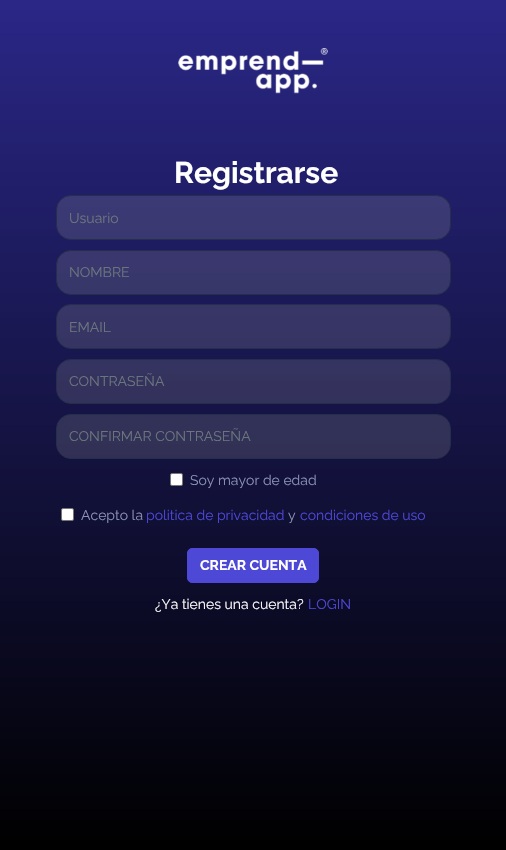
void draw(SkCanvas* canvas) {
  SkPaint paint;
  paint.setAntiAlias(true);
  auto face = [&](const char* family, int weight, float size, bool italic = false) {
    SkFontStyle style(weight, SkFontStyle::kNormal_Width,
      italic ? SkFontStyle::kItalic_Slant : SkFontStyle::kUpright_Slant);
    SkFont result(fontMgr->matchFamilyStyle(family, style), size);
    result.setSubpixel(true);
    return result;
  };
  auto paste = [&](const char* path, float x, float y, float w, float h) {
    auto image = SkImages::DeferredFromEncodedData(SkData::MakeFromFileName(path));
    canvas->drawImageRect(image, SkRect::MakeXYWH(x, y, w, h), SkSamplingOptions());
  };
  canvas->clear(0xffffffff);
  {
    const SkColor colors[] = {0xff2a2787, 0xff000000};
    const float stops[] = {0, 1};
    const SkPoint ends[] = {{253, 0}, {253, 850}};
    paint.setShader(SkGradientShader::MakeLinear(ends, colors, stops, 2, SkTileMode::kClamp));
    paint.setAlpha(255);
  }
  canvas->drawRect(SkRect::MakeXYWH(0, 0, 506, 850), paint);
  paste("img/1.png", 178, 48, 150, 46);
  paint.setShader(nullptr);
  paint.setColor(0x30b0b0b0);
  canvas->drawRoundRect(SkRect::MakeXYWH(56.5f, 195.5f, 394, 44), 14.5f, 14.5f, paint);
  paint.setStroke(true);
  paint.setStrokeWidth(1);
  paint.setColor(0xff252e4b);
  canvas->drawRoundRect(SkRect::MakeXYWH(56.5f, 195.5f, 394, 44), 14.5f, 14.5f, paint);
  paint.setStroke(false);
  paint.setColor(0x30b0b0b0);
  canvas->drawRoundRect(SkRect::MakeXYWH(56.5f, 250.5f, 394, 44), 14.5f, 14.5f, paint);
  paint.setStroke(true);
  paint.setColor(0xff252e4b);
  canvas->drawRoundRect(SkRect::MakeXYWH(56.5f, 250.5f, 394, 44), 14.5f, 14.5f, paint);
  paint.setStroke(false);
  paint.setColor(0x30b0b0b0);
  canvas->drawRoundRect(SkRect::MakeXYWH(56.5f, 304.5f, 394, 44), 14.5f, 14.5f, paint);
  paint.setStroke(true);
  paint.setColor(0xff252e4b);
  canvas->drawRoundRect(SkRect::MakeXYWH(56.5f, 304.5f, 394, 44), 14.5f, 14.5f, paint);
  paint.setStroke(false);
  paint.setColor(0x30b0b0b0);
  canvas->drawRoundRect(SkRect::MakeXYWH(56.5f, 359.5f, 394, 44), 14.5f, 14.5f, paint);
  paint.setStroke(true);
  paint.setColor(0xff252e4b);
  canvas->drawRoundRect(SkRect::MakeXYWH(56.5f, 359.5f, 394, 44), 14.5f, 14.5f, paint);
  paint.setStroke(false);
  paint.setColor(0x30b0b0b0);
  canvas->drawRoundRect(SkRect::MakeXYWH(56.5f, 414.5f, 394, 44), 14.5f, 14.5f, paint);
  paint.setStroke(true);
  paint.setColor(0xff252e4b);
  canvas->drawRoundRect(SkRect::MakeXYWH(56.5f, 414.5f, 394, 44), 14.5f, 14.5f, paint);
  paint.setStroke(false);
  paint.setColor(0xffffffff);
  canvas->drawRoundRect(SkRect::MakeXYWH(170.5f, 473.5f, 12, 12), 1.5f, 1.5f, paint);
  paint.setStroke(true);
  paint.setColor(0xff767676);
  canvas->drawRoundRect(SkRect::MakeXYWH(170.5f, 473.5f, 12, 12), 1.5f, 1.5f, paint);
  paint.setStroke(false);
  paint.setColor(0xffffffff);
  canvas->drawRoundRect(SkRect::MakeXYWH(61.5f, 508.5f, 12, 12), 1.5f, 1.5f, paint);
  paint.setStroke(true);
  paint.setColor(0xff767676);
  canvas->drawRoundRect(SkRect::MakeXYWH(61.5f, 508.5f, 12, 12), 1.5f, 1.5f, paint);
  paint.setStroke(false);
  paint.setColor(0xff4d48d6);
  canvas->drawRoundRect(SkRect::MakeXYWH(187.5f, 548.5f, 131, 34), 4.5f, 4.5f, paint);
  paint.setStroke(true);
  canvas->drawRoundRect(SkRect::MakeXYWH(187.5f, 548.5f, 131, 34), 4.5f, 4.5f, paint);
  auto f0 = face("Raleway", 700, 30);
  paint.setStroke(false);
  paint.setColor(0xffffffff);
  canvas->drawString("Registrarse", 174, 183, f0, paint);
  auto f1 = face("Raleway", 400, 14);
  paint.setColor(0xff6c757d);
  {
    const struct { const char* s; float x, y; } items[] = {
      {"Usuario", 69, 223},
      {"NOMBRE", 69, 277},
      {"EMAIL", 69, 332},
      {"CONTRASEÑA", 69, 386},
      {"CONFIRMAR CONTRASEÑA", 69, 441},
    };
    for (auto [s, x, y] : items) {
      canvas->drawString(s, x, y, f1, paint);
    }
  }
  paint.setColor(0xff8c91b6);
  canvas->drawString("Soy mayor de edad", 190, 485, f1, paint);
  canvas->drawString("Acepto la", 81, 520, f1, paint);
  paint.setColor(0xff4d48d6);
  canvas->drawString("politica de privacidad", 146, 520, f1, paint);
  paint.setColor(0xff8c91b6);
  canvas->drawString("y", 288, 520, f1, paint);
  paint.setColor(0xff4d48d6);
  canvas->drawString("condiciones de uso", 300, 520, f1, paint);
  auto f2 = face("Raleway", 700, 14);
  paint.setColor(0xffffffff);
  canvas->drawString("CREAR CUENTA", 200, 570, f2, paint);
  canvas->drawString("¿Ya tienes una cuenta?", 155, 609, f1, paint);
  paint.setColor(0xff4d48d6);
  canvas->drawString("LOGIN", 308, 609, f1, paint);
}
